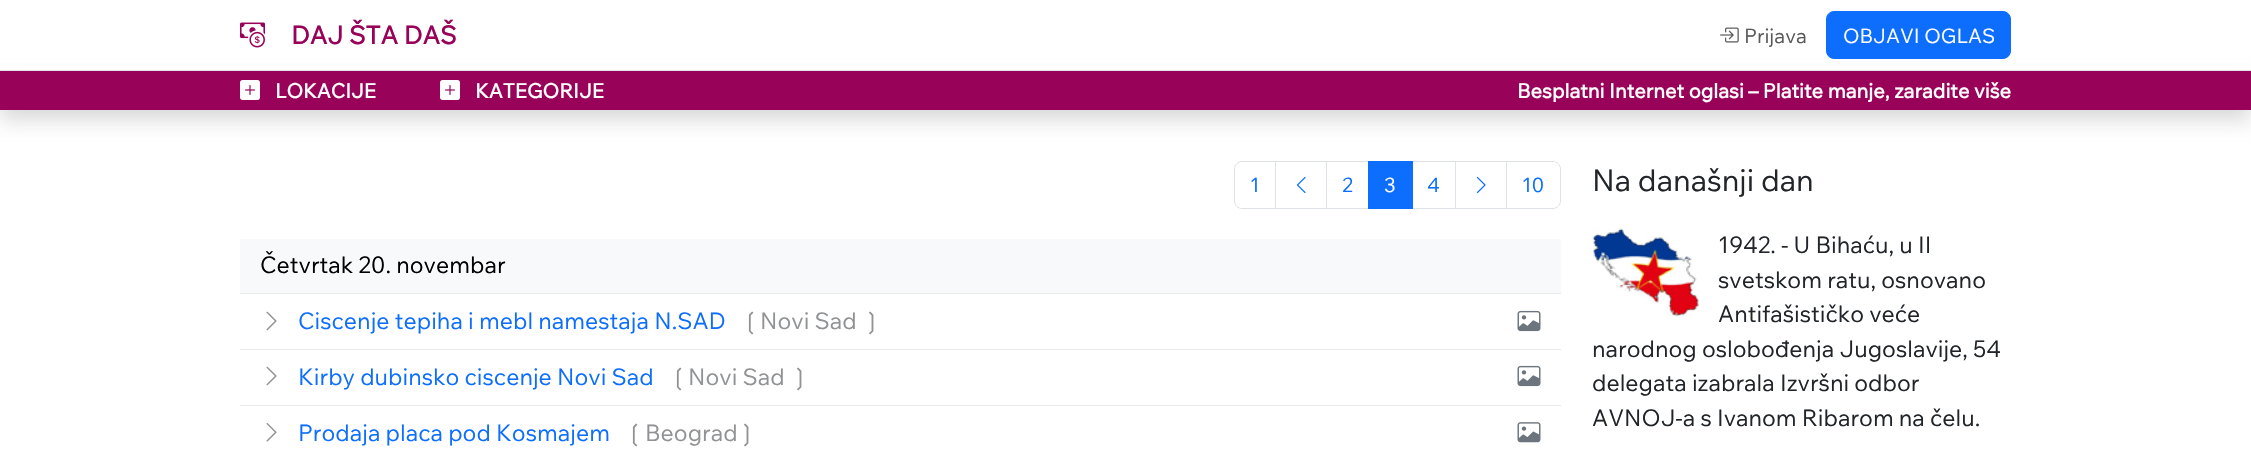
void draw(SkCanvas* canvas) {
  SkPaint paint;
  paint.setAntiAlias(true);
  auto face = [&](const char* family, int weight, float size, bool italic = false) {
    SkFontStyle style(weight, SkFontStyle::kNormal_Width,
      italic ? SkFontStyle::kItalic_Slant : SkFontStyle::kUpright_Slant);
    SkFont result(fontMgr->matchFamilyStyle(family, style), size);
    result.setSubpixel(true);
    return result;
  };
  auto paste = [&](const char* path, float x, float y, float w, float h) {
    auto image = SkImages::DeferredFromEncodedData(SkData::MakeFromFileName(path));
    canvas->drawImageRect(image, SkRect::MakeXYWH(x, y, w, h), SkSamplingOptions());
  };
  auto shape = [&](const char* data, bool evenOdd = false) {
    SkPath result = *SkParsePath::FromSVGString(data);
    if (evenOdd) result.setFillType(SkPathFillType::kEvenOdd);
    return result;
  };
  canvas->clear(0xffffffff);
  paint.setColor(0x26000000);
  paint.setMaskFilter(SkMaskFilter::MakeBlur(kNormal_SkBlurStyle, 10));
  canvas->drawRect(SkRect::MakeXYWH(0, 80, 2251, 40), paint);
  paint.setMaskFilter(nullptr);
  paint.setColor(0xffffffff);
  canvas->drawRect(SkRect::MakeXYWH(0, 65, 2251, 5), paint);
  paint.setColor(0xffdee2e6);
  canvas->drawRect(SkRect::MakeXYWH(0, 70, 2251, 1), paint);
  paste("img/1.png", 240, 22, 25, 26);
  paste("img/2.png", 1720, 27, 19, 16);
  paint.setColor(0xff0d6efd);
  canvas->drawRoundRect(SkRect::MakeXYWH(1826.5f, 11.5f, 184, 47), 7.5f, 7.5f, paint);
  paint.setStroke(true);
  paint.setStrokeWidth(1);
  canvas->drawRoundRect(SkRect::MakeXYWH(1826.5f, 11.5f, 184, 47), 7.5f, 7.5f, paint);
  paint.setStroke(false);
  paint.setColor(0xff980359);
  canvas->drawRect(SkRect::MakeXYWH(0, 71, 2251, 39), paint);
  paste("img/3.png", 240, 80, 20, 20);
  paste("img/3.png", 440, 80, 20, 20);
  paint.setStroke(true);
  paint.setColor(0xffdee2e6);
  canvas->drawPath(shape("M1242 161.5H1275.5V208.5H1242C1238 208.5 1234.5 205 1234.5 201V169C1234.5 165 1238 161.5 1242 161.5Z"), paint);
  canvas->drawRect(SkRect::MakeXYWH(1275.5f, 161.5f, 52, 47), paint);
  paste("img/4.png", 1296, 177, 10, 16);
  paint.setStroke(false);
  paint.setColor(0xffffffff);
  canvas->drawRect(SkRect::MakeXYWH(1327, 162, 1, 46), paint);
  paint.setStroke(true);
  paint.setColor(0xffdee2e6);
  canvas->drawRect(SkRect::MakeXYWH(1326.5f, 161.5f, 42, 47), paint);
  canvas->drawRect(SkRect::MakeXYWH(1411.5f, 161.5f, 44, 47), paint);
  paint.setStroke(false);
  paint.setColor(0xff0d6efd);
  canvas->drawRect(SkRect::MakeXYWH(1368, 161, 45, 48), paint);
  paint.setStroke(true);
  paint.setColor(0xffdee2e6);
  canvas->drawRect(SkRect::MakeXYWH(1455.5f, 161.5f, 52, 47), paint);
  paste("img/5.png", 1476, 176, 10, 18);
  paint.setStroke(false);
  paint.setColor(0xffffffff);
  canvas->drawPath(shape("M1506.5 161.5H1553C1557 161.5 1560.5 165 1560.5 169V201C1560.5 205 1557 208.5 1553 208.5H1506.5Z"), paint);
  paint.setStroke(true);
  paint.setColor(0xffdee2e6);
  canvas->drawPath(shape("M1506.5 161.5H1553C1557 161.5 1560.5 165 1560.5 169V201C1560.5 205 1557 208.5 1553 208.5H1506.5Z"), paint);
  paint.setStroke(false);
  {
    const struct { float x, y, w, h; SkColor color; } items[] = {
      {240, 239, 1321, 54, 0xfff8f9fa},
      {240, 293, 1321, 1, 0xffe9ecef},
      {240, 349, 1321, 1, 0xffe9ecef},
    };
    for (auto [x, y, w, h, color] : items) {
      paint.setColor(color);
      canvas->drawRect(SkRect::MakeXYWH(x, y, w, h), paint);
    }
  }
  paste("img/6.png", 266, 311, 11, 20);
  paste("img/7.png", 1517, 310, 24, 22);
  canvas->drawRect(SkRect::MakeXYWH(240, 405, 1321, 1), paint);
  paste("img/6.png", 266, 366, 11, 20);
  paste("img/7.png", 1517, 365, 24, 22);
  paste("img/8.png", 266, 423, 11, 19);
  paste("img/9.png", 1517, 422, 24, 21);
  paste("img/10.png", 1592, 228, 107, 89);
  auto f0 = face("Wix Madefor Text", 700, 25);
  paint.setColor(0xff980359);
  canvas->drawString("DAJ ŠTA DAŠ", 291, 44, f0, paint);
  auto f1 = face("Wix Madefor Text", 400, 20);
  paint.setColor(0xff595959);
  canvas->drawString("Prijava", 1744, 43, f1, paint);
  paint.setColor(0xffffffff);
  canvas->drawString("OBJAVI OGLAS", 1843, 43, f1, paint);
  auto f2 = face("Wix Madefor Text", 700, 20);
  {
    const struct { const char* s; float x, y; } items[] = {
      {"LOKACIJE", 275, 98},
      {"KATEGORIJE", 475, 98},
      {"Besplatni Internet oglasi – Platite manje, zaradite više", 1517, 98},
    };
    for (auto [s, x, y] : items) {
      canvas->drawString(s, x, y, f2, paint);
    }
  }
  paint.setColor(0xff0d6efd);
  canvas->drawString("1", 1250, 192, f1, paint);
  canvas->drawString("2", 1342, 192, f1, paint);
  paint.setColor(0xffffffff);
  canvas->drawString("3", 1384, 192, f1, paint);
  paint.setColor(0xff0d6efd);
  canvas->drawString("4", 1427, 192, f1, paint);
  canvas->drawString("10", 1522, 192, f1, paint);
  auto f3 = face("Wix Madefor Text", 400, 23);
  paint.setColor(0xff000000);
  canvas->drawString("Četvrtak 20. novembar", 260, 273, f3, paint);
  paint.setColor(0xff0d6efd);
  canvas->drawString("Ciscenje tepiha i mebl namestaja N.SAD", 298, 329, f3, paint);
  auto f4 = face("DejaVu Sans", 400, 23);
  paint.setColor(0xff909294);
  canvas->drawString("❲", 741, 329, f4, paint);
  canvas->drawString("Novi Sad", 760, 329, f3, paint);
  canvas->drawString("❳", 862, 329, f4, paint);
  paint.setColor(0xff0d6efd);
  canvas->drawString("Kirby dubinsko ciscenje Novi Sad", 298, 385, f3, paint);
  paint.setColor(0xff909294);
  canvas->drawString("❲", 669, 385, f4, paint);
  canvas->drawString("Novi Sad", 688, 385, f3, paint);
  canvas->drawString("❳", 790, 385, f4, paint);
  paint.setColor(0xff0d6efd);
  canvas->drawString("Prodaja placa pod Kosmajem", 298, 441, f3, paint);
  paint.setColor(0xff909294);
  canvas->drawString("❲", 625, 441, f4, paint);
  canvas->drawString("Beograd", 645, 441, f3, paint);
  canvas->drawString("❳", 737, 441, f4, paint);
  auto f5 = face("Wix Madefor Text", 400, 30);
  paint.setColor(0xff212529);
  canvas->drawString("Na današnji dan", 1592, 191, f5, paint);
  {
    const struct { const char* s; float x, y; } items[] = {
      {"1942. - U Bihaću, u II", 1718, 253},
      {"svetskom ratu, osnovano", 1718, 288},
      {"Antifašističko veće", 1718, 322},
      {"narodnog oslobođenja Jugoslavije, 54", 1592, 357},
      {"delegata izabrala Izvršni odbor", 1592, 391},
      {"AVNOJ-a s Ivanom Ribarom na čelu.", 1592, 426},
    };
    for (auto [s, x, y] : items) {
      canvas->drawString(s, x, y, f3, paint);
    }
  }
}
